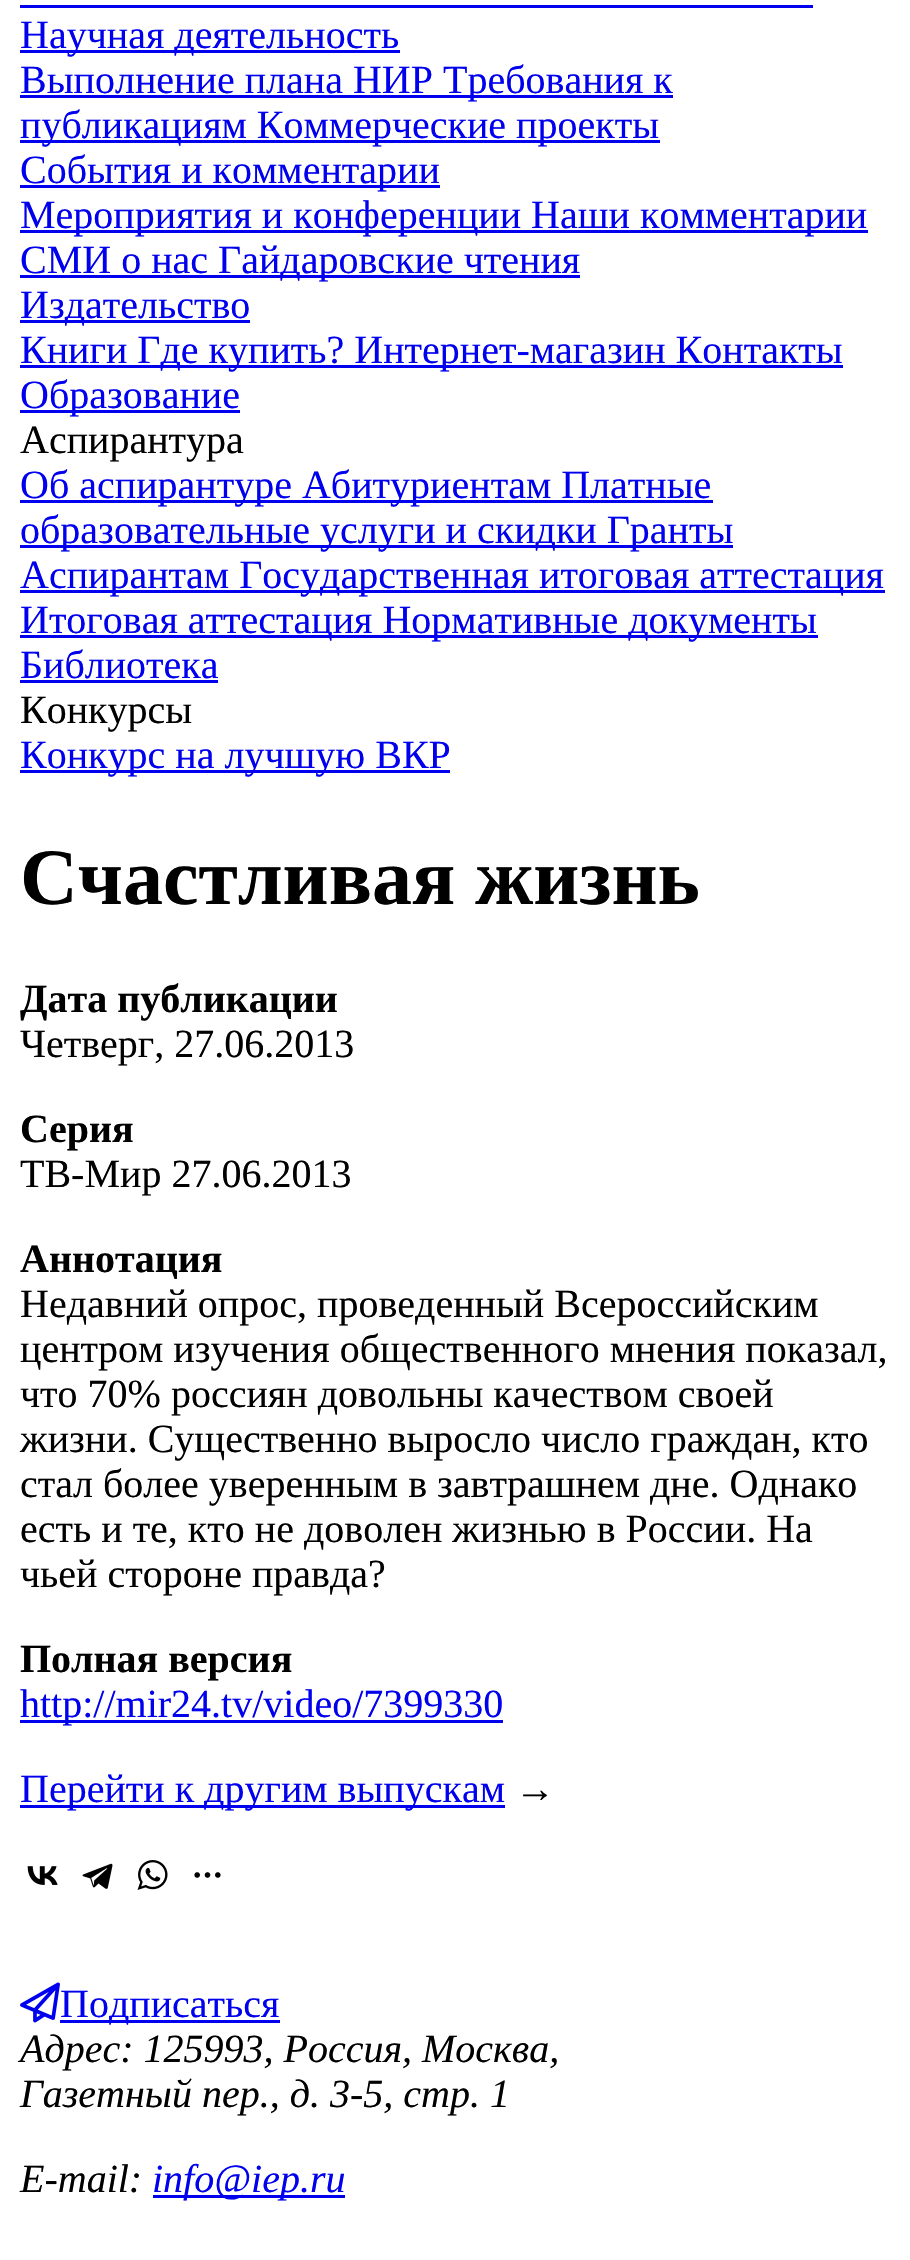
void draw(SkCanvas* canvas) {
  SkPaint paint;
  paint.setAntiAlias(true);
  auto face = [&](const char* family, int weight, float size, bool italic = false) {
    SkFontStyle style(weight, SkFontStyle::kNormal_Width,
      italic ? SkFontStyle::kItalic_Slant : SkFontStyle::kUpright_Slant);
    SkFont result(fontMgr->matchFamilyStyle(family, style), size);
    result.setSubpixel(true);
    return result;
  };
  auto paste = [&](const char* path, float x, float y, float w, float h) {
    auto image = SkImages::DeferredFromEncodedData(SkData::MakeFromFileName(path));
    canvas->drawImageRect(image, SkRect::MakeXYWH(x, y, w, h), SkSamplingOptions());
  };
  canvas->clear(0xffffffff);
  {
    const struct { float x, y, w, h; SkColor color; } items[] = {
      {20, 5, 793, 3, 0xff0000ee},
      {20, 50, 380, 3, 0xff0000ee},
      {20, 95, 653, 3, 0xff0000ee},
      {20, 140, 640, 3, 0xff0000ee},
      {20, 185, 420, 3, 0xff0000ee},
      {20, 230, 848, 3, 0xff0000ee},
      {20, 275, 560, 3, 0xff0000ee},
      {20, 320, 230, 3, 0xff0000ee},
      {20, 365, 823, 3, 0xff0000ee},
      {20, 410, 220, 3, 0xff0000ee},
      {20, 500, 693, 3, 0xff0000ee},
      {20, 545, 713, 3, 0xff0000ee},
      {20, 590, 865, 3, 0xff0000ee},
      {20, 635, 798, 3, 0xff0000ee},
      {20, 680, 198, 3, 0xff0000ee},
      {20, 770, 430, 3, 0xff0000ee},
      {20, 1720, 483, 3, 0xff0000ee},
      {20, 1805, 485, 3, 0xff0000ee},
    };
    for (auto [x, y, w, h, color] : items) {
      paint.setColor(color);
      canvas->drawRect(SkRect::MakeXYWH(x, y, w, h), paint);
    }
  }
  paste("img/1.png", 27, 1866, 31, 19);
  paste("img/2.png", 82, 1863, 31, 26);
  paste("img/3.png", 137, 1860, 31, 30);
  paste("img/4.png", 194, 1872, 27, 6);
  paste("img/5.png", 20, 1982, 40, 41);
  canvas->drawRect(SkRect::MakeXYWH(60, 2020, 220, 3), paint);
  canvas->drawRect(SkRect::MakeXYWH(153, 2195, 192, 3), paint);
  auto f0 = face("Liberation Serif", 400, 40);
  {
    const struct { const char* s; float x, y; } items[] = {
      {"Научная деятельность", 20, 48},
      {"Выполнение плана НИР Требования к", 20, 93},
      {"публикациям Коммерческие проекты", 20, 138},
      {"События и комментарии", 20, 183},
      {"Мероприятия и конференции Наши комментарии", 20, 228},
      {"СМИ о нас Гайдаровские чтения", 20, 273},
      {"Издательство", 20, 318},
      {"Книги Где купить? Интернет-магазин Контакты", 20, 363},
      {"Образование", 20, 408},
    };
    for (auto [s, x, y] : items) {
      canvas->drawString(s, x, y, f0, paint);
    }
  }
  paint.setColor(0xff000000);
  canvas->drawString("Аспирантура", 20, 453, f0, paint);
  paint.setColor(0xff0000ee);
  {
    const struct { const char* s; float x, y; } items[] = {
      {"Об аспирантуре Абитуриентам Платные", 20, 498},
      {"образовательные услуги и скидки Гранты", 20, 543},
      {"Аспирантам Государственная итоговая аттестация", 20, 588},
      {"Итоговая аттестация Нормативные документы", 20, 633},
      {"Библиотека", 20, 678},
    };
    for (auto [s, x, y] : items) {
      canvas->drawString(s, x, y, f0, paint);
    }
  }
  paint.setColor(0xff000000);
  canvas->drawString("Конкурсы", 20, 723, f0, paint);
  paint.setColor(0xff0000ee);
  canvas->drawString("Конкурс на лучшую ВКР", 20, 768, f0, paint);
  auto f1 = face("Liberation Serif", 700, 80);
  paint.setColor(0xff000000);
  canvas->drawString("Счастливая жизнь", 20, 904, f1, paint);
  auto f2 = face("Liberation Serif", 700, 40);
  canvas->drawString("Дата публикации", 20, 1012, f2, paint);
  canvas->drawString("Четверг, 27.06.2013", 20, 1057, f0, paint);
  canvas->drawString("Серия", 20, 1142, f2, paint);
  canvas->drawString("ТВ-Мир 27.06.2013", 20, 1187, f0, paint);
  canvas->drawString("Аннотация", 20, 1272, f2, paint);
  {
    const struct { const char* s; float x, y; } items[] = {
      {"Недавний опрос, проведенный Всероссийским", 20, 1317},
      {"центром изучения общественного мнения показал,", 20, 1362},
      {"что 70% россиян довольны качеством своей", 20, 1407},
      {"жизни. Существенно выросло число граждан, кто", 20, 1452},
      {"стал более уверенным в завтрашнем дне. Однако", 20, 1497},
      {"есть и те, кто не доволен жизнью в России. На", 20, 1542},
      {"чьей стороне правда?", 20, 1587},
    };
    for (auto [s, x, y] : items) {
      canvas->drawString(s, x, y, f0, paint);
    }
  }
  canvas->drawString("Полная версия", 20, 1672, f2, paint);
  paint.setColor(0xff0000ee);
  canvas->drawString("http://mir24.tv/video/7399330", 20, 1717, f0, paint);
  canvas->drawString("Перейти к другим выпускам", 20, 1802, f0, paint);
  paint.setColor(0xff000000);
  canvas->drawString("→", 515, 1802, f0, paint);
  paint.setColor(0xff0000ee);
  canvas->drawString("Подписаться", 60, 2017, f0, paint);
  auto f3 = face("Liberation Serif", 400, 40, true);
  paint.setColor(0xff000000);
  {
    const struct { const char* s; float x, y; } items[] = {
      {"Адрес: 125993, Россия, Москва,", 20, 2062},
      {"Газетный пер., д. 3-5, стр. 1", 20, 2107},
      {"E-mail:", 20, 2192},
    };
    for (auto [s, x, y] : items) {
      canvas->drawString(s, x, y, f3, paint);
    }
  }
  paint.setColor(0xff0000ee);
  canvas->drawString("info@iep.ru", 152, 2192, f3, paint);
}
